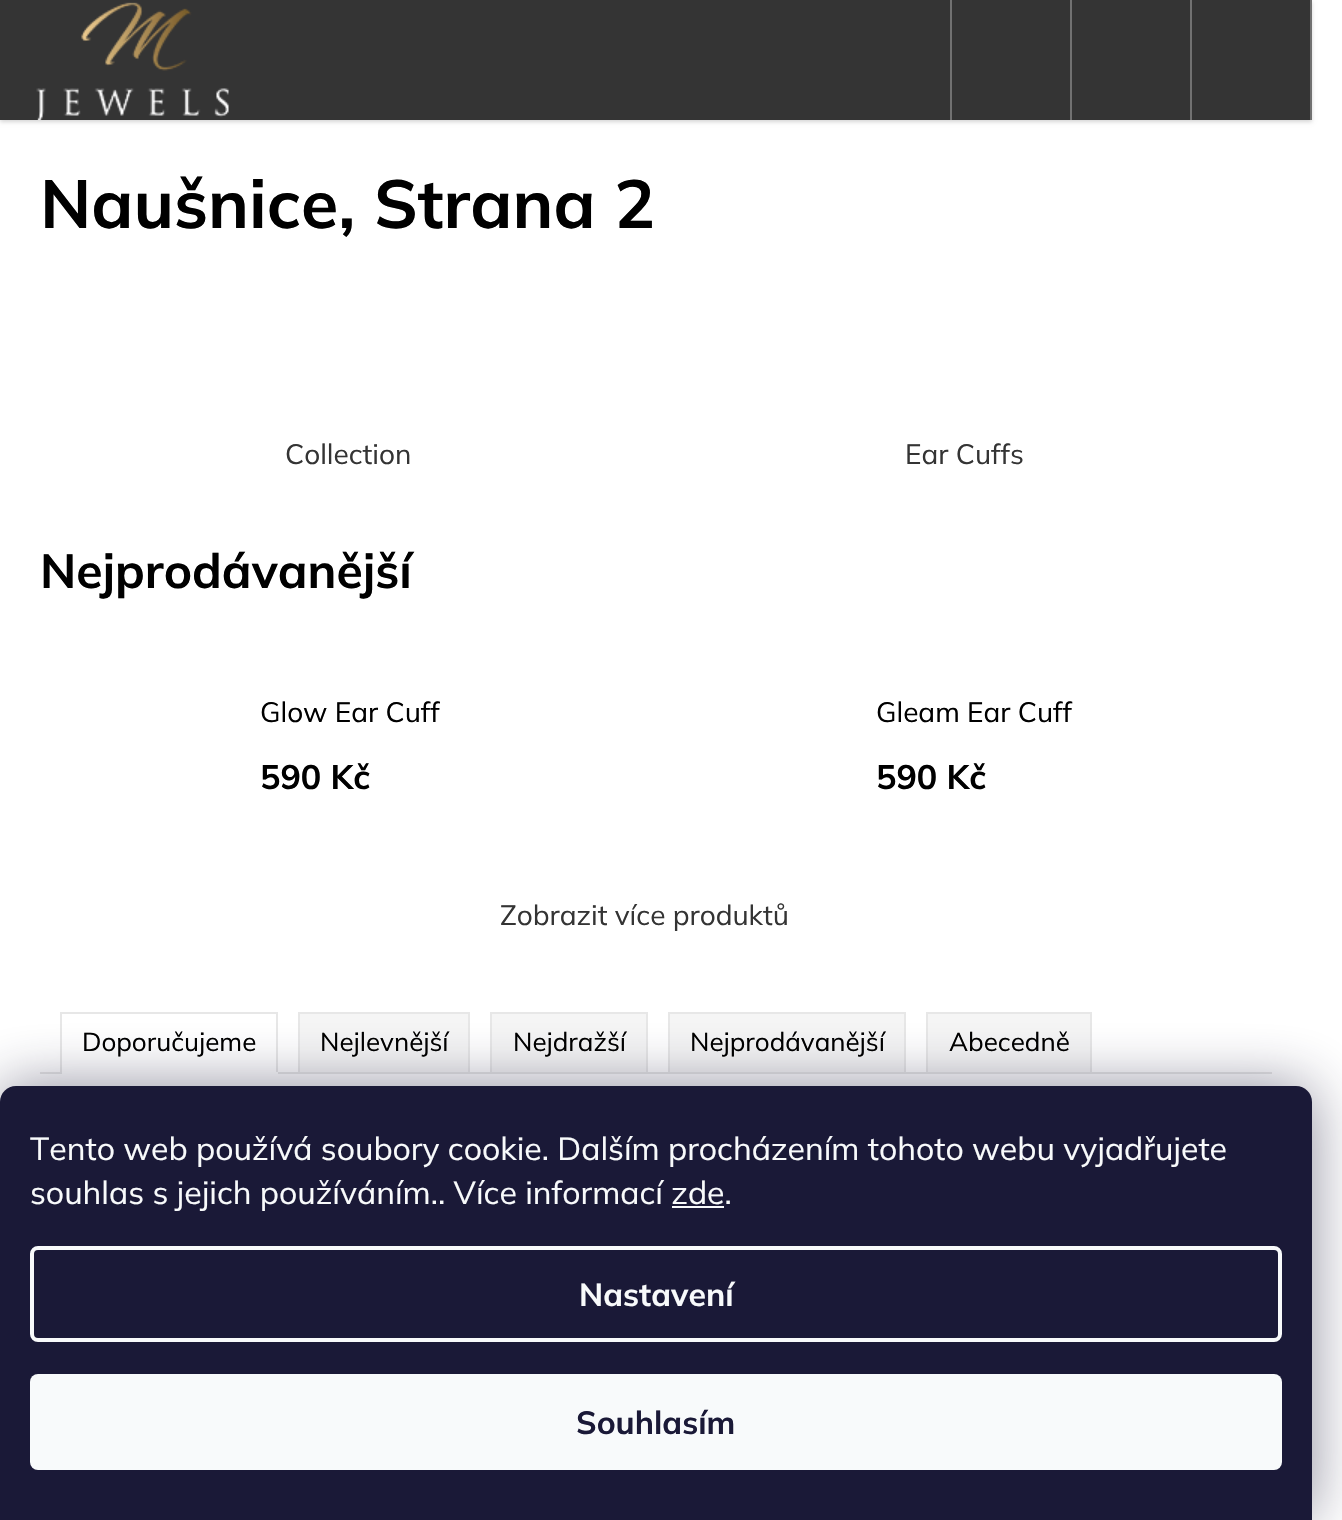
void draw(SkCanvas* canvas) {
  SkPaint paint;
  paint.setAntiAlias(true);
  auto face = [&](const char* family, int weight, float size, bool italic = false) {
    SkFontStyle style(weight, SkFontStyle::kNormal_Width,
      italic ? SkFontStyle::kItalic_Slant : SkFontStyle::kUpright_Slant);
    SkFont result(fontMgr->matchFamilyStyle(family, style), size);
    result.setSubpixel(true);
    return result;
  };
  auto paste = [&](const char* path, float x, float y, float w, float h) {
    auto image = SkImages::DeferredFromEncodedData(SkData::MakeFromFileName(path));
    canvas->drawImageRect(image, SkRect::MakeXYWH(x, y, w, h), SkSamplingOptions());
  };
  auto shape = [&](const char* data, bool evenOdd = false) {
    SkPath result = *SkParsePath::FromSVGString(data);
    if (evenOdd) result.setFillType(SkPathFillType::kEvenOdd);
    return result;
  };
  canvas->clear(0xffffffff);
  paint.setColor(0x29000000);
  paint.setMaskFilter(SkMaskFilter::MakeBlur(kNormal_SkBlurStyle, 2));
  canvas->drawRect(SkRect::MakeXYWH(0, 2, 1312, 120), paint);
  paint.setMaskFilter(nullptr);
  paint.setColor(0xff343434);
  canvas->drawRect(SkRect::MakeXYWH(0, 0, 1310, 120), paint);
  paste("img/1.png", 36, 2, 193, 118);
  {
    const struct { float x, y, w, h; SkColor color; } items[] = {
      {1310, 0, 2, 120, 0xff717171},
      {950, 0, 2, 120, 0xff717171},
      {1070, 0, 2, 120, 0xff717171},
      {1190, 0, 2, 120, 0xff717171},
      {40, 1072, 1232, 2, 0xffe7e7e7},
      {60, 1012, 218, 2, 0xffe7e7e7},
      {276, 1012, 2, 62, 0xffe7e7e7},
      {60, 1072, 218, 2, 0xffffffff},
      {60, 1012, 2, 62, 0xffe7e7e7},
    };
    for (auto [x, y, w, h, color] : items) {
      paint.setColor(color);
      canvas->drawRect(SkRect::MakeXYWH(x, y, w, h), paint);
    }
  }
  paint.setColor(0xfff5f5f5);
  canvas->drawRect(SkRect::MakeXYWH(299, 1013, 170, 60), paint);
  paint.setStroke(true);
  paint.setStrokeWidth(2);
  paint.setColor(0xffe7e7e7);
  canvas->drawRect(SkRect::MakeXYWH(299, 1013, 170, 60), paint);
  paint.setStroke(false);
  paint.setColor(0xfff5f5f5);
  canvas->drawRect(SkRect::MakeXYWH(491, 1013, 156, 60), paint);
  paint.setStroke(true);
  paint.setColor(0xffe7e7e7);
  canvas->drawRect(SkRect::MakeXYWH(491, 1013, 156, 60), paint);
  paint.setStroke(false);
  paint.setColor(0xfff5f5f5);
  canvas->drawRect(SkRect::MakeXYWH(669, 1013, 236, 60), paint);
  paint.setStroke(true);
  paint.setColor(0xffe7e7e7);
  canvas->drawRect(SkRect::MakeXYWH(669, 1013, 236, 60), paint);
  paint.setStroke(false);
  paint.setColor(0xfff5f5f5);
  canvas->drawRect(SkRect::MakeXYWH(927, 1013, 164, 60), paint);
  paint.setStroke(true);
  paint.setColor(0xffe7e7e7);
  canvas->drawRect(SkRect::MakeXYWH(927, 1013, 164, 60), paint);
  paint.setStroke(false);
  paint.setColor(0x801b1939);
  paint.setMaskFilter(SkMaskFilter::MakeBlur(kNormal_SkBlurStyle, 30));
  canvas->drawRoundRect(SkRect::MakeXYWH(0, 1086, 1312, 434), 16, 16, paint);
  paint.setMaskFilter(nullptr);
  paint.setColor(0xff1a1937);
  canvas->drawPath(shape("M16 1086H1296C1305 1086 1312 1093 1312 1102V1520H0V1102C0 1093 7 1086 16 1086Z"), paint);
  paint.setColor(0xfff8fafb);
  canvas->drawRect(SkRect::MakeXYWH(672, 1206, 52, 2), paint);
  paint.setStroke(true);
  paint.setStrokeWidth(4);
  canvas->drawRoundRect(SkRect::MakeXYWH(32, 1248, 1248, 92), 6, 6, paint);
  paint.setStroke(false);
  canvas->drawRoundRect(SkRect::MakeXYWH(30, 1374, 1252, 96), 8, 8, paint);
  auto f0 = face("Mulish", 700, 68);
  paint.setColor(0xff000000);
  canvas->drawString("Naušnice, Strana 2", 40, 228, f0, paint);
  auto f1 = face("Mulish", 400, 28);
  paint.setColor(0xff343434);
  canvas->drawString("Collection", 285, 464, f1, paint);
  canvas->drawString("Ear Cuffs", 905, 464, f1, paint);
  auto f2 = face("Mulish", 700, 48);
  paint.setColor(0xff000000);
  canvas->drawString("Nejprodávanější", 40, 588, f2, paint);
  canvas->drawString("Glow Ear Cuff", 260, 722, f1, paint);
  auto f3 = face("Mulish", 700, 34);
  canvas->drawString("590 Kč", 260, 789, f3, paint);
  canvas->drawString("Gleam Ear Cuff", 876, 722, f1, paint);
  canvas->drawString("590 Kč", 876, 789, f3, paint);
  paint.setColor(0xff343434);
  canvas->drawString("Zobrazit více produktů", 500, 925, f1, paint);
  auto f4 = face("Mulish", 400, 26);
  paint.setColor(0xff000000);
  {
    const struct { const char* s; float x, y; } items[] = {
      {"Doporučujeme", 82, 1051},
      {"Nejlevnější", 320, 1051},
      {"Nejdražší", 513, 1051},
      {"Nejprodávanější", 690, 1051},
      {"Abecedně", 949, 1051},
    };
    for (auto [s, x, y] : items) {
      canvas->drawString(s, x, y, f4, paint);
    }
  }
  auto f5 = face("Mulish", 400, 32);
  paint.setColor(0xfff8fafb);
  canvas->drawString("Tento web používá soubory cookie. Dalším procházením tohoto webu vyjadřujete", 30, 1160, f5, paint);
  canvas->drawString("souhlas s jejich používáním.. Více informací zde.", 30, 1204, f5, paint);
  auto f6 = face("Mulish", 700, 32);
  canvas->drawString("Nastavení", 579, 1306, f6, paint);
  paint.setColor(0xff1a1937);
  canvas->drawString("Souhlasím", 576, 1434, f6, paint);
}
